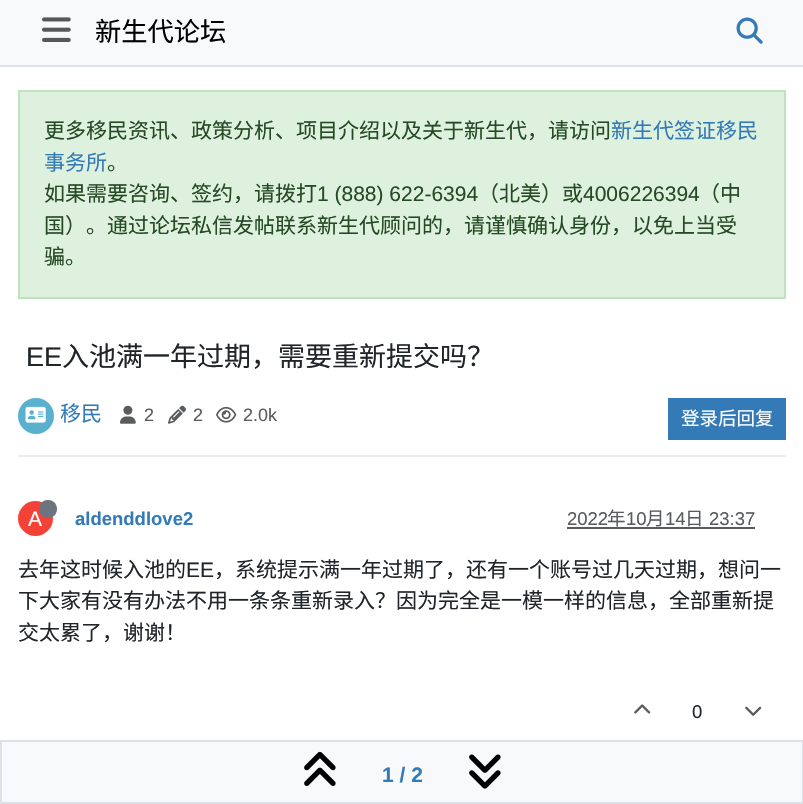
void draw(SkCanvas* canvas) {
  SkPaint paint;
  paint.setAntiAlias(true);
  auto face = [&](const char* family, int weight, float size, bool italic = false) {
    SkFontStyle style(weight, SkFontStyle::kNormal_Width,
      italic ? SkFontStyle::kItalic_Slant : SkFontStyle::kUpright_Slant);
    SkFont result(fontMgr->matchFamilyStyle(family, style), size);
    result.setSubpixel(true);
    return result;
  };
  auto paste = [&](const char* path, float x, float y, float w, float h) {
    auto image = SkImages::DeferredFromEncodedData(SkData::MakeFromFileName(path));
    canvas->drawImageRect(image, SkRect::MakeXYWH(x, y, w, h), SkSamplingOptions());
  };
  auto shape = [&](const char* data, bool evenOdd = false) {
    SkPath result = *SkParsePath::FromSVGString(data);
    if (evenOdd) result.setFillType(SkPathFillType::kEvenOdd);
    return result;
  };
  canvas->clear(0xffffffff);
  paint.setColor(0xfff8f9fa);
  canvas->drawRect(SkRect::MakeXYWH(0, 0, 803, 65), paint);
  paint.setColor(0xffdee2e6);
  canvas->drawRect(SkRect::MakeXYWH(0, 65, 803, 2), paint);
  paste("img/1.png", 42, 17, 29, 25);
  paste("img/2.png", 736, 17, 27, 27);
  paint.setColor(0xffdef1de);
  canvas->drawRect(SkRect::MakeXYWH(19, 91, 766, 207), paint);
  paint.setStroke(true);
  paint.setStrokeWidth(2);
  paint.setColor(0xffbee3be);
  canvas->drawRect(SkRect::MakeXYWH(19, 91, 766, 207), paint);
  paint.setStroke(false);
  paint.setColor(0xffe9ecef);
  canvas->drawRect(SkRect::MakeXYWH(18, 455, 768, 2), paint);
  paint.setColor(0xff59b0cf);
  canvas->drawCircle(36, 416, 18, paint);
  paste("img/3.png", 25, 406, 21, 17);
  paste("img/4.png", 120, 405, 16, 19);
  paste("img/5.png", 168, 405, 18, 19);
  paste("img/6.png", 216, 406, 21, 17);
  paint.setColor(0xff337ab7);
  canvas->drawRect(SkRect::MakeXYWH(668, 398, 118, 42), paint);
  paint.setColor(0xfff44336);
  canvas->drawCircle(35.5f, 518.5f, 17.5f, paint);
  paint.setColor(0xff595c5f);
  canvas->drawRect(SkRect::MakeXYWH(567, 527, 188, 2), paint);
  paste("img/7.png", 634, 704, 17, 10);
  paste("img/8.png", 745, 706, 17, 10);
  paint.setColor(0xfff8f9fa);
  canvas->drawRect(SkRect::MakeXYWH(1, 741, 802, 62), paint);
  paint.setStroke(true);
  paint.setColor(0xffdee2e6);
  canvas->drawRect(SkRect::MakeXYWH(1, 741, 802, 62), paint);
  paste("img/9.png", 304, 751, 32, 35);
  paste("img/10.png", 469, 754, 32, 35);
  auto f0 = face("Noto Sans CJK SC", 400, 26.25f);
  paint.setStroke(false);
  paint.setColor(0xff000000);
  canvas->drawString("新生代论坛", 95, 41, f0, paint);
  auto f1 = face("Noto Sans CJK SC", 400, 21);
  paint.setColor(0xff254a25);
  canvas->drawString("更多移民资讯、政策分析、项目介绍以及关于新生代，请访问", 44, 138, f1, paint);
  paint.setColor(0xff337ab7);
  canvas->drawString("新生代签证移民", 611, 138, f1, paint);
  canvas->drawString("事务所", 44, 170, f1, paint);
  paint.setColor(0xff254a25);
  canvas->drawString("。", 107, 170, f1, paint);
  canvas->drawString("如果需要咨询、签约，请拨打", 44, 201, f1, paint);
  auto f2 = face("Liberation Sans", 400, 21);
  canvas->drawString("1 (888) 622-6394", 317, 201, f2, paint);
  canvas->drawString("（北美）或", 478, 201, f1, paint);
  canvas->drawString("4006226394", 583, 201, f2, paint);
  {
    const struct { const char* s; float x, y; } items[] = {
      {"（中", 699, 201},
      {"国）。通过论坛私信发帖联系新生代顾问的，请谨慎确认身份，以免上当受", 44, 233},
      {"骗。", 44, 264},
    };
    for (auto [s, x, y] : items) {
      canvas->drawString(s, x, y, f1, paint);
    }
  }
  auto f3 = face("Liberation Sans", 400, 27);
  paint.setColor(0xff212529);
  canvas->drawString("EE", 26, 366, f3, paint);
  auto f4 = face("Noto Sans CJK SC", 400, 27);
  canvas->drawString("入池满一年过期，需要重新提交吗？", 62, 366, f4, paint);
  paint.setColor(0xff337ab7);
  canvas->drawString("移民", 60, 421, f1, paint);
  auto f5 = face("Liberation Sans", 400, 18);
  paint.setColor(0xff595c5f);
  {
    const struct { const char* s; float x, y; } items[] = {
      {"2", 144, 421},
      {"2", 193, 421},
      {"2.0k", 243, 421},
    };
    for (auto [s, x, y] : items) {
      canvas->drawString(s, x, y, f5, paint);
    }
  }
  auto f6 = face("Noto Sans CJK SC", 400, 18.5f);
  paint.setColor(0xffffffff);
  canvas->drawString("登录后回复", 681, 425, f6, paint);
  canvas->drawString("A", 28, 526, f2, paint);
  paint.setColor(0xff6c757d);
  canvas->drawPath(shape("M48 518C60 518 60 500 48 500C36 500 36 518 48 518Z"), paint);
  auto f7 = face("Liberation Sans", 700, 18.5f);
  paint.setColor(0xff337ab7);
  canvas->drawString("aldenddlove2", 75, 525, f7, paint);
  auto f8 = face("Liberation Sans", 400, 18.5f);
  paint.setColor(0xff595c5f);
  canvas->drawString("2022", 567, 525, f8, paint);
  canvas->drawString("年", 607, 525, f6, paint);
  canvas->drawString("10", 626, 525, f8, paint);
  canvas->drawString("月", 646, 525, f6, paint);
  canvas->drawString("14", 665, 525, f8, paint);
  canvas->drawString("日", 685, 525, f6, paint);
  canvas->drawString("23:37", 709, 525, f8, paint);
  paint.setColor(0xff212529);
  canvas->drawString("去年这时候入池的", 18, 577, f1, paint);
  canvas->drawString("EE", 186, 577, f2, paint);
  {
    const struct { const char* s; float x, y; } items[] = {
      {"，系统提示满一年过期了，还有一个账号过几天过期，想问一", 214, 577},
      {"下大家有没有办法不用一条条重新录入？因为完全是一模一样的信息，全部重新提", 18, 608},
      {"交太累了，谢谢！", 18, 640},
    };
    for (auto [s, x, y] : items) {
      canvas->drawString(s, x, y, f1, paint);
    }
  }
  canvas->drawString("0", 692, 718, f8, paint);
  auto f9 = face("Liberation Sans", 700, 21);
  paint.setColor(0xff337ab7);
  canvas->drawString("1 / 2", 382, 782, f9, paint);
}
